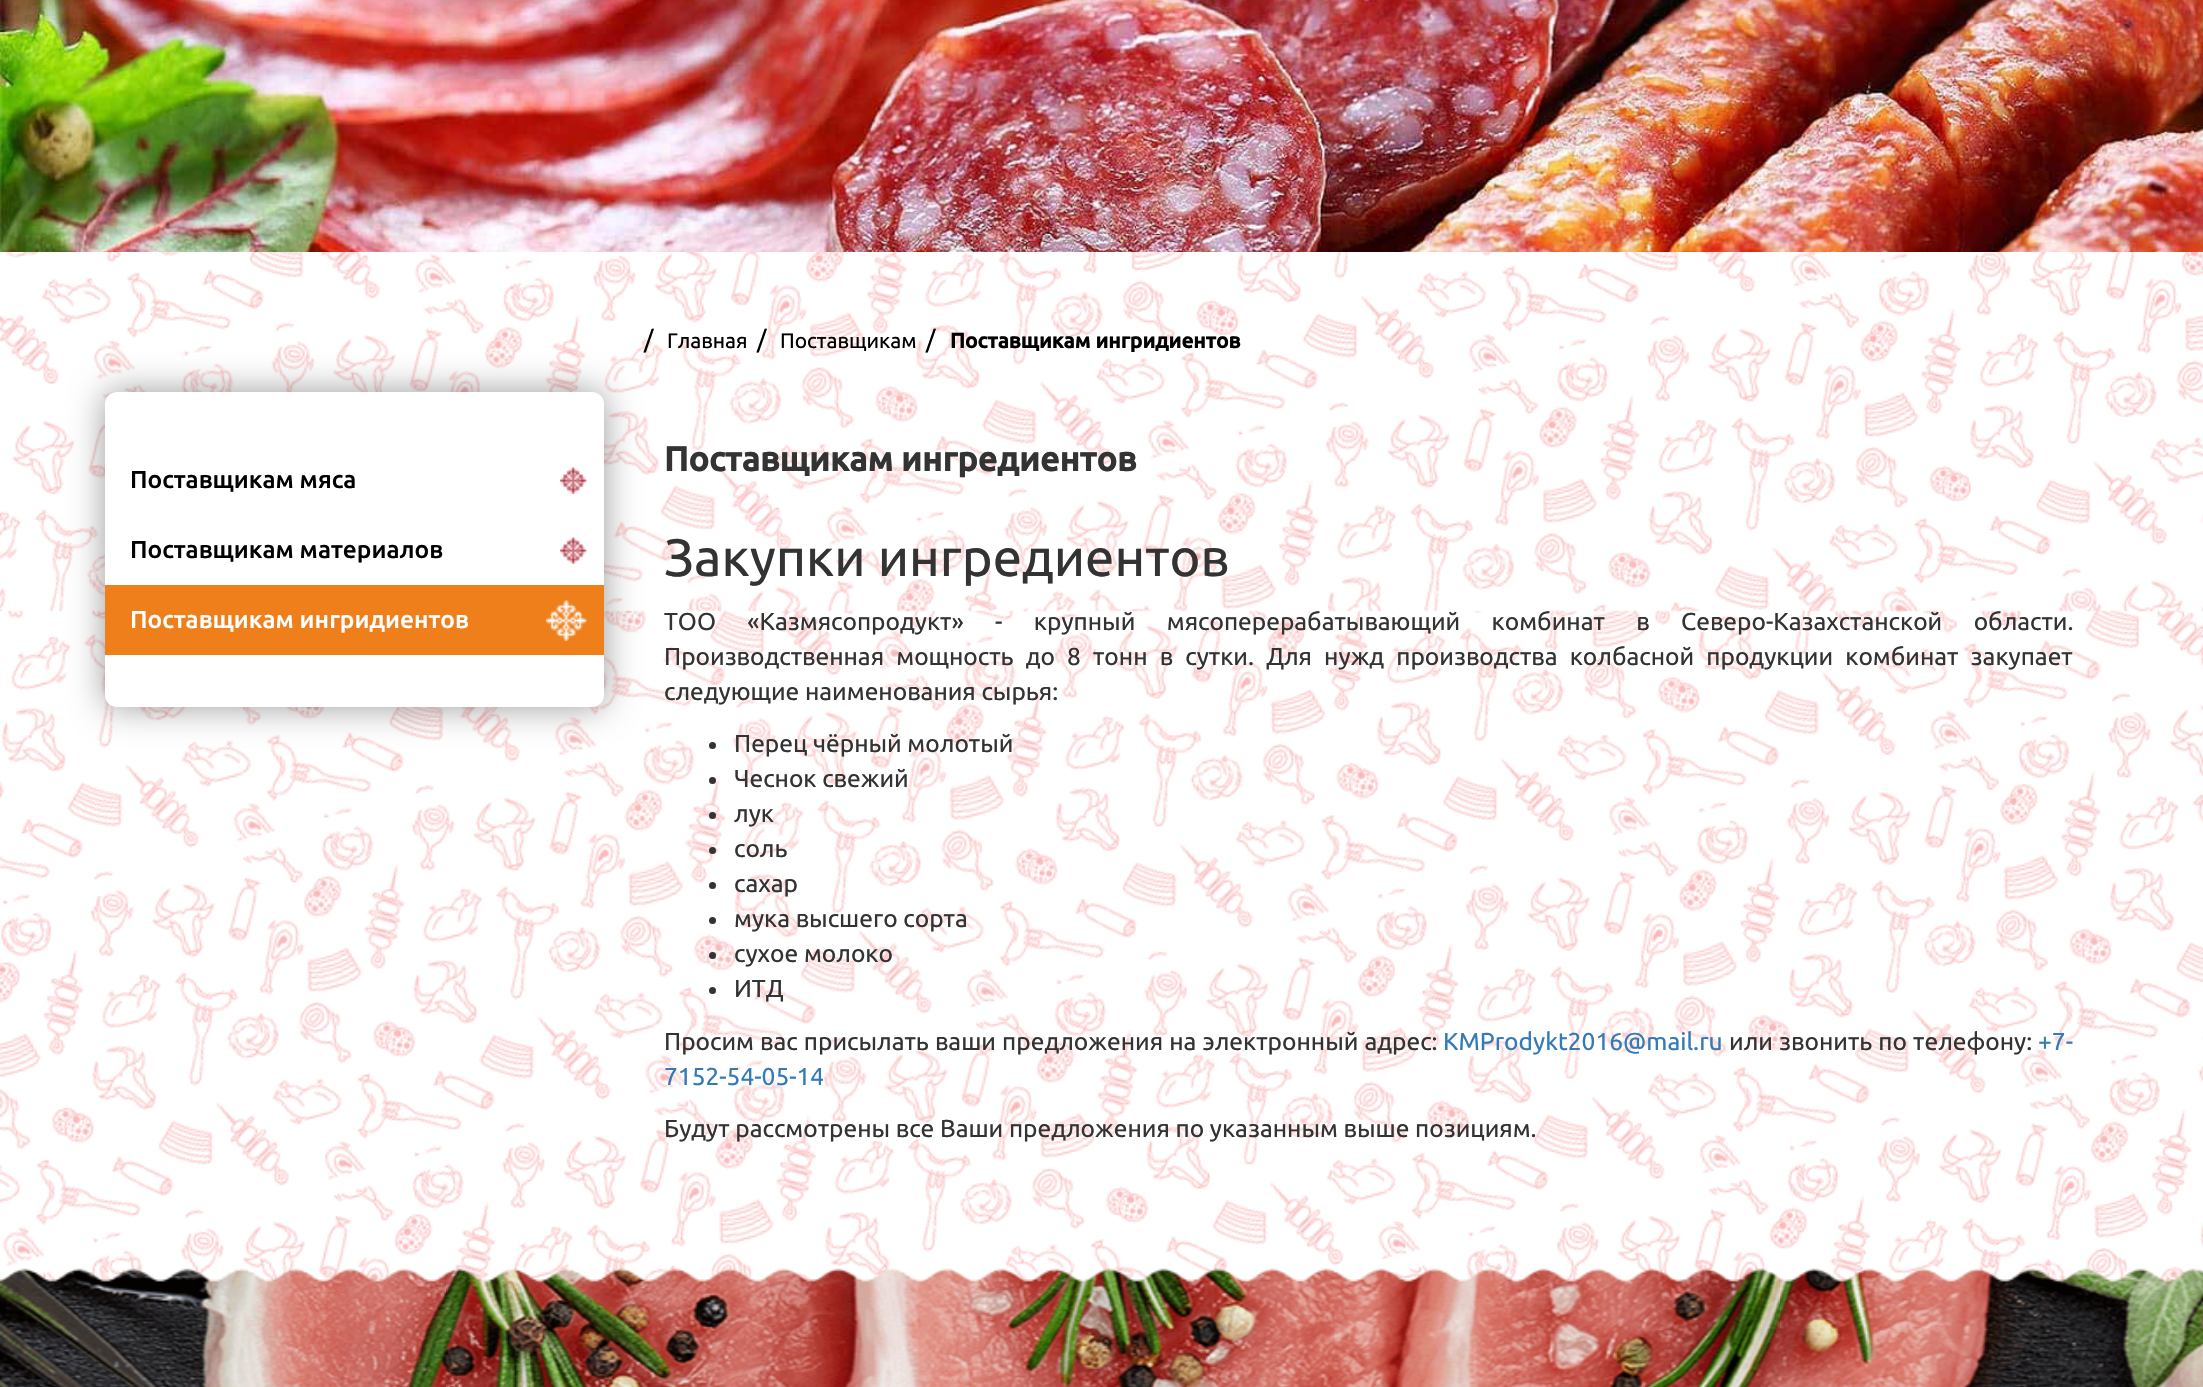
void draw(SkCanvas* canvas) {
  SkPaint paint;
  paint.setAntiAlias(true);
  auto face = [&](const char* family, int weight, float size, bool italic = false) {
    SkFontStyle style(weight, SkFontStyle::kNormal_Width,
      italic ? SkFontStyle::kItalic_Slant : SkFontStyle::kUpright_Slant);
    SkFont result(fontMgr->matchFamilyStyle(family, style), size);
    result.setSubpixel(true);
    return result;
  };
  auto writeSpaced = [&](const char* s, float x, float y, const SkFont& font, const SkPaint& ink, float letter, float word) {
    std::vector<SkGlyphID> glyphs(font.countText(s, strlen(s), SkTextEncoding::kUTF8));
    std::vector<float> xs(glyphs.size());
    font.textToGlyphs(s, strlen(s), SkTextEncoding::kUTF8, glyphs);
    font.getXPos(glyphs, xs, x);
    float extra = 0;
    for (size_t i = 0; i < glyphs.size(); i++) {
      xs[i] += extra;
      extra += letter + word * (glyphs[i] == font.unicharToGlyph(' '));
    }
    canvas->drawTextBlob(SkTextBlob::MakeFromPosHGlyphs(glyphs, xs, y, font), 0, 0, ink);
  };
  auto paste = [&](const char* path, float x, float y, float w, float h) {
    auto image = SkImages::DeferredFromEncodedData(SkData::MakeFromFileName(path));
    canvas->drawImageRect(image, SkRect::MakeXYWH(x, y, w, h), SkSamplingOptions());
  };
  canvas->clear(0xffffffff);
  paste("img/1.png", 0, 252, 2203, 1030);
  paste("img/2.png", 0, 0, 2203, 252);
  paint.setColor(0x66000000);
  paint.setMaskFilter(SkMaskFilter::MakeBlur(kNormal_SkBlurStyle, 17.5f));
  canvas->drawRoundRect(SkRect::MakeXYWH(105, 392, 499, 315), 12, 12, paint);
  paint.setMaskFilter(nullptr);
  paint.setColor(0xffffffff);
  canvas->drawRoundRect(SkRect::MakeXYWH(105, 392, 499, 315), 12, 12, paint);
  paste("img/3.png", 560, 467, 27, 27);
  paste("img/3.png", 560, 537, 27, 27);
  paint.setColor(0xffef7f1a);
  canvas->drawRect(SkRect::MakeXYWH(105, 585, 499, 70), paint);
  paste("img/4.png", 546, 600, 41, 41);
  paint.setColor(0xff333333);
  canvas->drawCircle(712.5f, 745.5f, 3.5f, paint);
  canvas->drawCircle(712.5f, 780.5f, 3.5f, paint);
  canvas->drawCircle(712.5f, 815.5f, 3.5f, paint);
  canvas->drawCircle(712.5f, 850.5f, 3.5f, paint);
  canvas->drawCircle(712.5f, 885.5f, 3.5f, paint);
  canvas->drawCircle(712.5f, 920.5f, 3.5f, paint);
  canvas->drawCircle(712.5f, 955.5f, 3.5f, paint);
  canvas->drawCircle(712.5f, 990.5f, 3.5f, paint);
  paste("img/5.png", 0, 1268, 2203, 119);
  auto f0 = face("Ubuntu", 400, 24.5f);
  paint.setColor(0xff000000);
  canvas->drawString("/", 644, 348, f0, paint);
  auto f1 = face("Ubuntu", 400, 21);
  canvas->drawString("Главная", 667, 348, f1, paint);
  canvas->drawString("/", 757, 348, f0, paint);
  canvas->drawString("Поставщикам", 780, 348, f1, paint);
  canvas->drawString("/", 926, 348, f0, paint);
  auto f2 = face("Ubuntu", 700, 21);
  canvas->drawString("Поставщикам ингридиентов", 950, 348, f2, paint);
  auto f3 = face("Ubuntu", 500, 24.5f);
  canvas->drawString("Поставщикам мяса", 130, 488, f3, paint);
  canvas->drawString("Поставщикам материалов", 130, 558, f3, paint);
  paint.setColor(0xffffffff);
  canvas->drawString("Поставщикам ингридиентов", 130, 628, f3, paint);
  auto f4 = face("Ubuntu", 700, 34.25f);
  paint.setColor(0xff333333);
  canvas->drawString("Поставщикам ингредиентов", 664, 471, f4, paint);
  auto f5 = face("Ubuntu", 400, 52.5f);
  canvas->drawString("Закупки ингредиентов", 664, 576, f5, paint);
  writeSpaced("ТОО «Казмясопродукт» - крупный мясоперерабатывающий комбинат в Северо-Казахстанской области.", 664, 630, f0, paint, 0, 25.75f);
  writeSpaced("Производственная мощность до 8 тонн в сутки. Для нужд производства колбасной продукции комбинат закупает", 664, 665, f0, paint, 0, 6.5f);
  {
    const struct { const char* s; float x, y; } items[] = {
      {"следующие наименования сырья:", 664, 700},
      {"Перец чёрный молотый", 734, 752},
      {"Чеснок свежий", 734, 787},
      {"лук", 734, 822},
      {"соль", 734, 857},
      {"сахар", 734, 892},
      {"мука высшего сорта", 734, 927},
      {"сухое молоко", 734, 962},
      {"ИТД", 734, 997},
    };
    for (auto [s, x, y] : items) {
      canvas->drawString(s, x, y, f0, paint);
    }
  }
  writeSpaced("Просим вас присылать ваши предложения на электронный адрес:", 664, 1050, f0, paint, 0, 0.5f);
  paint.setColor(0xff337ab7);
  canvas->drawString("KMProdykt2016@mail.ru", 1443, 1050, f0, paint);
  paint.setColor(0xff333333);
  writeSpaced("или звонить по телефону:", 1729, 1050, f0, paint, 0, 0.5f);
  paint.setColor(0xff337ab7);
  canvas->drawString("+7-", 2038, 1050, f0, paint);
  canvas->drawString("7152-54-05-14", 664, 1085, f0, paint);
  paint.setColor(0xff333333);
  canvas->drawString("Будут рассмотрены все Ваши предложения по указанным выше позициям.", 664, 1137, f0, paint);
}
